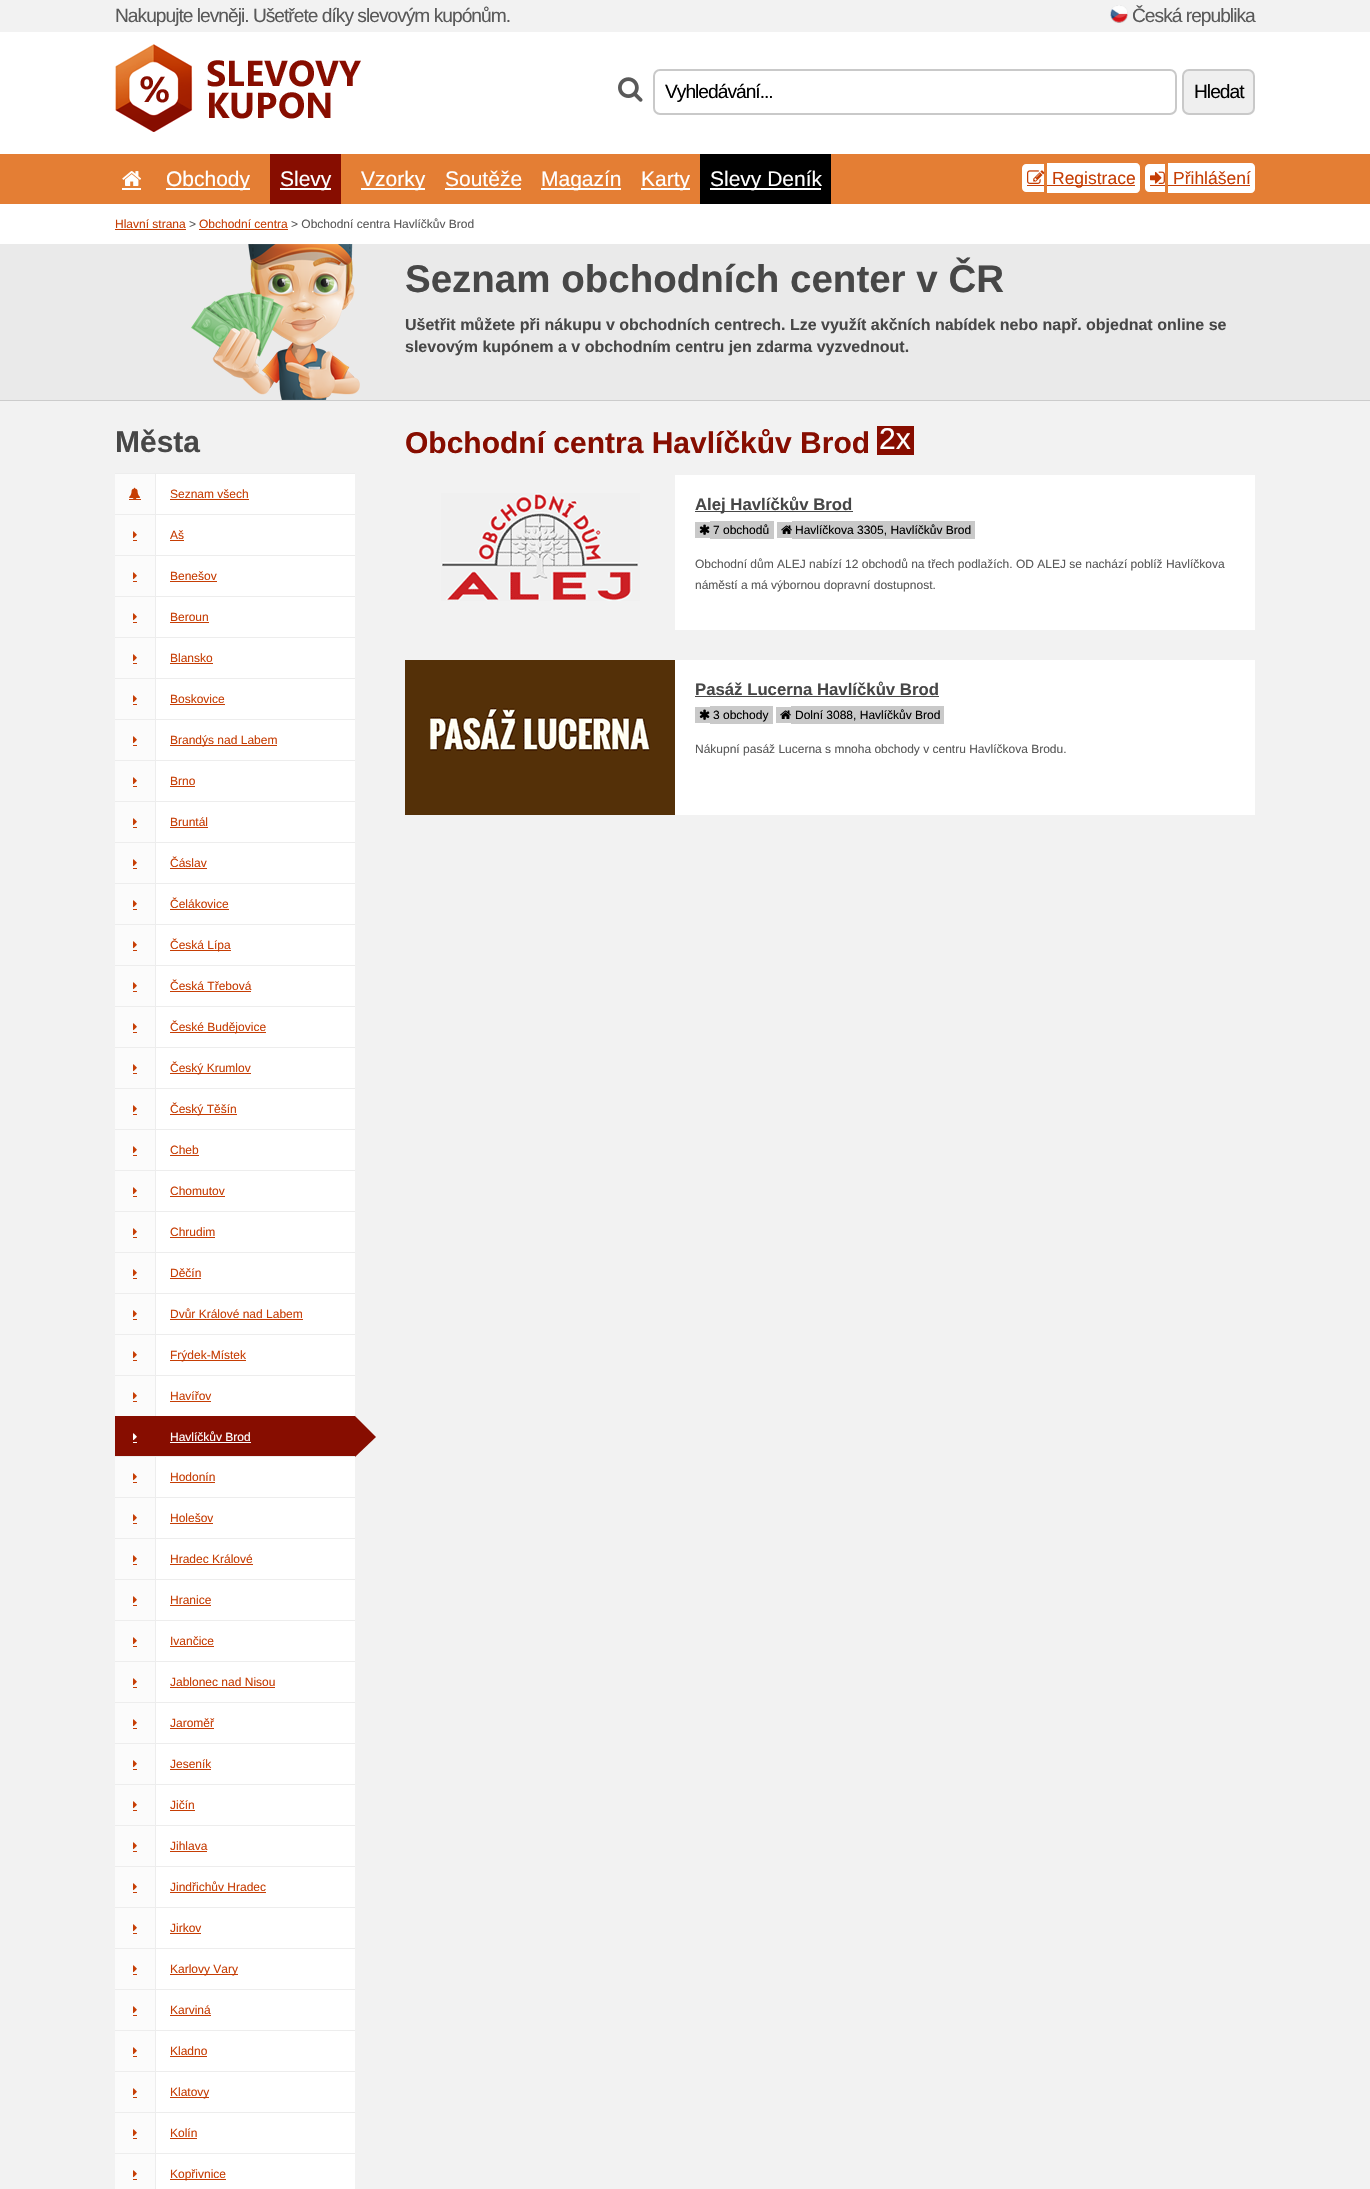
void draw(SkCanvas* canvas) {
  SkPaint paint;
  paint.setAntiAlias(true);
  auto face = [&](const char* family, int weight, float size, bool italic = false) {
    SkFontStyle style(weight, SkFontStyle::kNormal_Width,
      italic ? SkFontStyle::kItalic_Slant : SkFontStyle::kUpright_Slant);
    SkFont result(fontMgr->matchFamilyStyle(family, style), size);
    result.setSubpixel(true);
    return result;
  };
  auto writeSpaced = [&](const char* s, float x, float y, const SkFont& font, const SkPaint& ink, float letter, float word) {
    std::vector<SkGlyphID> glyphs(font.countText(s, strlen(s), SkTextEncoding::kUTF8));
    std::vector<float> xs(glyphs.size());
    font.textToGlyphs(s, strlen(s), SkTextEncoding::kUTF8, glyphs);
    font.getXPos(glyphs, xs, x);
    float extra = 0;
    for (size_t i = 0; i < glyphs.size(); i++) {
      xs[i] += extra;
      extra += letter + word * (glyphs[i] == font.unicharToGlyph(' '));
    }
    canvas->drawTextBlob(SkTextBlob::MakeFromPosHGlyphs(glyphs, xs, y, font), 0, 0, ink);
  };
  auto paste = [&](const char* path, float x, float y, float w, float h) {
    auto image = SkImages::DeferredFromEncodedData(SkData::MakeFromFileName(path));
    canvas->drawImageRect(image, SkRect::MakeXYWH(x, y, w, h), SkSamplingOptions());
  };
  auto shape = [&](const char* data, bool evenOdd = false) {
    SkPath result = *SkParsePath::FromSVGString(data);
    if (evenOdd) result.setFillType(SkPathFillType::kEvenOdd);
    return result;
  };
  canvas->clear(0xfff2f2f2);
  paste("img/1.png", 1110, 5, 18, 18);
  paint.setColor(0xffffffff);
  canvas->drawRect(SkRect::MakeXYWH(0, 32, 1370, 122), paint);
  paste("img/2.png", 115, 44, 246, 88);
  paste("img/3.png", 618, 77, 25, 25);
  paint.setStroke(true);
  paint.setStrokeWidth(2);
  paint.setColor(0xffc9c9c9);
  canvas->drawRoundRect(SkRect::MakeXYWH(654, 70, 522, 44), 6, 6, paint);
  paint.setStroke(false);
  paint.setColor(0xffefefef);
  canvas->drawRoundRect(SkRect::MakeXYWH(1183, 70, 71, 44), 6, 6, paint);
  paint.setStroke(true);
  paint.setColor(0xffc9c9c9);
  canvas->drawRoundRect(SkRect::MakeXYWH(1183, 70, 71, 44), 6, 6, paint);
  paint.setStroke(false);
  paint.setColor(0xffe47e34);
  canvas->drawRect(SkRect::MakeXYWH(0, 154, 1370, 50), paint);
  paste("img/4.png", 122, 171, 19, 15);
  {
    const struct { float x, y, w, h; SkColor color; } items[] = {
      {122, 188, 19, 2, 0xffffffff},
      {166, 188, 84, 2, 0xffffffff},
      {270, 154, 71, 50, 0xff870d00},
      {280, 188, 51, 2, 0xffffffff},
      {361, 188, 64, 2, 0xffffffff},
      {445, 188, 76, 2, 0xffffffff},
      {541, 188, 80, 2, 0xffffffff},
      {641, 188, 49, 2, 0xffffffff},
      {700, 154, 131, 50, 0xff000000},
      {710, 188, 111, 2, 0xffffffff},
    };
    for (auto [x, y, w, h, color] : items) {
      paint.setColor(color);
      canvas->drawRect(SkRect::MakeXYWH(x, y, w, h), paint);
    }
  }
  canvas->drawPath(shape("M1026 164H1044V192H1026C1024 192 1022 190 1022 188V168C1022 166 1024 164 1026 164Z"), paint);
  paste("img/5.png", 1027, 170, 18, 14);
  canvas->drawPath(shape("M1047 163H1136C1138 163 1140 165 1140 167V189C1140 191 1138 193 1136 193H1047Z"), paint);
  paint.setColor(0xffc63e05);
  canvas->drawRect(SkRect::MakeXYWH(1027, 185, 17, 1), paint);
  canvas->drawRect(SkRect::MakeXYWH(1047, 185, 88, 1), paint);
  paint.setColor(0xffffffff);
  canvas->drawPath(shape("M1149 164H1165V192H1149C1147 192 1145 190 1145 188V168C1145 166 1147 164 1149 164Z"), paint);
  paste("img/6.png", 1150, 171, 15, 13);
  canvas->drawPath(shape("M1168 163H1251C1253 163 1255 165 1255 167V189C1255 191 1253 193 1251 193H1168Z"), paint);
  {
    const struct { float x, y, w, h; SkColor color; } items[] = {
      {1150, 185, 15, 1, 0xffc63e05},
      {1168, 185, 82, 1, 0xffc63e05},
      {0, 204, 1370, 40, 0xffffffff},
      {115, 229, 71, 1, 0xffc63e05},
      {199, 229, 89, 1, 0xffc63e05},
      {0, 244, 1370, 156, 0xffeaeaea},
      {0, 400, 1370, 1, 0xffcccccc},
    };
    for (auto [x, y, w, h, color] : items) {
      paint.setColor(color);
      canvas->drawRect(SkRect::MakeXYWH(x, y, w, h), paint);
    }
  }
  paste("img/7.png", 191, 244, 169, 156);
  {
    const struct { float x, y, w, h; SkColor color; } items[] = {
      {156, 474, 199, 40, 0xffffffff},
      {115, 473, 240, 1, 0xffededed},
      {115, 474, 40, 40, 0xfffbfbfb},
      {155, 474, 1, 40, 0xffededed},
    };
    for (auto [x, y, w, h, color] : items) {
      paint.setColor(color);
      canvas->drawRect(SkRect::MakeXYWH(x, y, w, h), paint);
    }
  }
  paste("img/8.png", 129, 487, 12, 12);
  {
    const struct { float x, y, w, h; SkColor color; } items[] = {
      {129, 499, 12, 1, 0xffc63e05},
      {170, 499, 79, 1, 0xffc63e05},
      {156, 515, 199, 40, 0xffffffff},
      {115, 514, 240, 1, 0xffededed},
      {115, 515, 40, 40, 0xfffbfbfb},
      {155, 515, 1, 40, 0xffededed},
    };
    for (auto [x, y, w, h, color] : items) {
      paint.setColor(color);
      canvas->drawRect(SkRect::MakeXYWH(x, y, w, h), paint);
    }
  }
  paste("img/9.png", 133, 531, 4, 8);
  {
    const struct { float x, y, w, h; SkColor color; } items[] = {
      {133, 540, 4, 1, 0xffc63e05},
      {170, 540, 14, 1, 0xffc63e05},
      {156, 556, 199, 40, 0xffffffff},
      {115, 555, 240, 1, 0xffededed},
      {115, 556, 40, 40, 0xfffbfbfb},
      {155, 556, 1, 40, 0xffededed},
    };
    for (auto [x, y, w, h, color] : items) {
      paint.setColor(color);
      canvas->drawRect(SkRect::MakeXYWH(x, y, w, h), paint);
    }
  }
  paste("img/9.png", 133, 572, 4, 8);
  {
    const struct { float x, y, w, h; SkColor color; } items[] = {
      {133, 581, 4, 1, 0xffc63e05},
      {170, 581, 47, 1, 0xffc63e05},
      {156, 597, 199, 40, 0xffffffff},
      {115, 596, 240, 1, 0xffededed},
      {115, 597, 40, 40, 0xfffbfbfb},
      {155, 597, 1, 40, 0xffededed},
    };
    for (auto [x, y, w, h, color] : items) {
      paint.setColor(color);
      canvas->drawRect(SkRect::MakeXYWH(x, y, w, h), paint);
    }
  }
  paste("img/9.png", 133, 613, 4, 8);
  {
    const struct { float x, y, w, h; SkColor color; } items[] = {
      {133, 622, 4, 1, 0xffc63e05},
      {170, 622, 39, 1, 0xffc63e05},
      {156, 638, 199, 40, 0xffffffff},
      {115, 637, 240, 1, 0xffededed},
      {115, 638, 40, 40, 0xfffbfbfb},
      {155, 638, 1, 40, 0xffededed},
    };
    for (auto [x, y, w, h, color] : items) {
      paint.setColor(color);
      canvas->drawRect(SkRect::MakeXYWH(x, y, w, h), paint);
    }
  }
  paste("img/9.png", 133, 654, 4, 8);
  {
    const struct { float x, y, w, h; SkColor color; } items[] = {
      {133, 663, 4, 1, 0xffc63e05},
      {170, 663, 43, 1, 0xffc63e05},
      {156, 679, 199, 40, 0xffffffff},
      {115, 678, 240, 1, 0xffededed},
      {115, 679, 40, 40, 0xfffbfbfb},
      {155, 679, 1, 40, 0xffededed},
    };
    for (auto [x, y, w, h, color] : items) {
      paint.setColor(color);
      canvas->drawRect(SkRect::MakeXYWH(x, y, w, h), paint);
    }
  }
  paste("img/9.png", 133, 695, 4, 8);
  {
    const struct { float x, y, w, h; SkColor color; } items[] = {
      {133, 704, 4, 1, 0xffc63e05},
      {170, 704, 55, 1, 0xffc63e05},
      {156, 720, 199, 40, 0xffffffff},
      {115, 719, 240, 1, 0xffededed},
      {115, 720, 40, 40, 0xfffbfbfb},
      {155, 720, 1, 40, 0xffededed},
    };
    for (auto [x, y, w, h, color] : items) {
      paint.setColor(color);
      canvas->drawRect(SkRect::MakeXYWH(x, y, w, h), paint);
    }
  }
  paste("img/9.png", 133, 736, 4, 8);
  {
    const struct { float x, y, w, h; SkColor color; } items[] = {
      {133, 745, 4, 1, 0xffc63e05},
      {170, 745, 107, 1, 0xffc63e05},
      {156, 761, 199, 40, 0xffffffff},
      {115, 760, 240, 1, 0xffededed},
      {115, 761, 40, 40, 0xfffbfbfb},
      {155, 761, 1, 40, 0xffededed},
    };
    for (auto [x, y, w, h, color] : items) {
      paint.setColor(color);
      canvas->drawRect(SkRect::MakeXYWH(x, y, w, h), paint);
    }
  }
  paste("img/9.png", 133, 777, 4, 8);
  {
    const struct { float x, y, w, h; SkColor color; } items[] = {
      {133, 786, 4, 1, 0xffc63e05},
      {170, 786, 25, 1, 0xffc63e05},
      {156, 802, 199, 40, 0xffffffff},
      {115, 801, 240, 1, 0xffededed},
      {115, 802, 40, 40, 0xfffbfbfb},
      {155, 802, 1, 40, 0xffededed},
    };
    for (auto [x, y, w, h, color] : items) {
      paint.setColor(color);
      canvas->drawRect(SkRect::MakeXYWH(x, y, w, h), paint);
    }
  }
  paste("img/9.png", 133, 818, 4, 8);
  {
    const struct { float x, y, w, h; SkColor color; } items[] = {
      {133, 827, 4, 1, 0xffc63e05},
      {170, 827, 38, 1, 0xffc63e05},
      {156, 843, 199, 40, 0xffffffff},
      {115, 842, 240, 1, 0xffededed},
      {115, 843, 40, 40, 0xfffbfbfb},
      {155, 843, 1, 40, 0xffededed},
    };
    for (auto [x, y, w, h, color] : items) {
      paint.setColor(color);
      canvas->drawRect(SkRect::MakeXYWH(x, y, w, h), paint);
    }
  }
  paste("img/9.png", 133, 859, 4, 8);
  {
    const struct { float x, y, w, h; SkColor color; } items[] = {
      {133, 868, 4, 1, 0xffc63e05},
      {170, 868, 37, 1, 0xffc63e05},
      {156, 884, 199, 40, 0xffffffff},
      {115, 883, 240, 1, 0xffededed},
      {115, 884, 40, 40, 0xfffbfbfb},
      {155, 884, 1, 40, 0xffededed},
    };
    for (auto [x, y, w, h, color] : items) {
      paint.setColor(color);
      canvas->drawRect(SkRect::MakeXYWH(x, y, w, h), paint);
    }
  }
  paste("img/9.png", 133, 900, 4, 8);
  {
    const struct { float x, y, w, h; SkColor color; } items[] = {
      {133, 909, 4, 1, 0xffc63e05},
      {170, 909, 59, 1, 0xffc63e05},
      {156, 925, 199, 40, 0xffffffff},
      {115, 924, 240, 1, 0xffededed},
      {115, 925, 40, 40, 0xfffbfbfb},
      {155, 925, 1, 40, 0xffededed},
    };
    for (auto [x, y, w, h, color] : items) {
      paint.setColor(color);
      canvas->drawRect(SkRect::MakeXYWH(x, y, w, h), paint);
    }
  }
  paste("img/9.png", 133, 941, 4, 8);
  {
    const struct { float x, y, w, h; SkColor color; } items[] = {
      {133, 950, 4, 1, 0xffc63e05},
      {170, 950, 61, 1, 0xffc63e05},
      {156, 966, 199, 40, 0xffffffff},
      {115, 965, 240, 1, 0xffededed},
      {115, 966, 40, 40, 0xfffbfbfb},
      {155, 966, 1, 40, 0xffededed},
    };
    for (auto [x, y, w, h, color] : items) {
      paint.setColor(color);
      canvas->drawRect(SkRect::MakeXYWH(x, y, w, h), paint);
    }
  }
  paste("img/9.png", 133, 982, 4, 8);
  {
    const struct { float x, y, w, h; SkColor color; } items[] = {
      {133, 991, 4, 1, 0xffc63e05},
      {170, 991, 81, 1, 0xffc63e05},
      {156, 1007, 199, 40, 0xffffffff},
      {115, 1006, 240, 1, 0xffededed},
      {115, 1007, 40, 40, 0xfffbfbfb},
      {155, 1007, 1, 40, 0xffededed},
    };
    for (auto [x, y, w, h, color] : items) {
      paint.setColor(color);
      canvas->drawRect(SkRect::MakeXYWH(x, y, w, h), paint);
    }
  }
  paste("img/9.png", 133, 1023, 4, 8);
  {
    const struct { float x, y, w, h; SkColor color; } items[] = {
      {133, 1032, 4, 1, 0xffc63e05},
      {170, 1032, 96, 1, 0xffc63e05},
      {156, 1048, 199, 40, 0xffffffff},
      {115, 1047, 240, 1, 0xffededed},
      {115, 1048, 40, 40, 0xfffbfbfb},
      {155, 1048, 1, 40, 0xffededed},
    };
    for (auto [x, y, w, h, color] : items) {
      paint.setColor(color);
      canvas->drawRect(SkRect::MakeXYWH(x, y, w, h), paint);
    }
  }
  paste("img/9.png", 133, 1064, 4, 8);
  {
    const struct { float x, y, w, h; SkColor color; } items[] = {
      {133, 1073, 4, 1, 0xffc63e05},
      {170, 1073, 81, 1, 0xffc63e05},
      {156, 1089, 199, 40, 0xffffffff},
      {115, 1088, 240, 1, 0xffededed},
      {115, 1089, 40, 40, 0xfffbfbfb},
      {155, 1089, 1, 40, 0xffededed},
    };
    for (auto [x, y, w, h, color] : items) {
      paint.setColor(color);
      canvas->drawRect(SkRect::MakeXYWH(x, y, w, h), paint);
    }
  }
  paste("img/9.png", 133, 1105, 4, 8);
  {
    const struct { float x, y, w, h; SkColor color; } items[] = {
      {133, 1114, 4, 1, 0xffc63e05},
      {170, 1114, 67, 1, 0xffc63e05},
      {156, 1130, 199, 40, 0xffffffff},
      {115, 1129, 240, 1, 0xffededed},
      {115, 1130, 40, 40, 0xfffbfbfb},
      {155, 1130, 1, 40, 0xffededed},
    };
    for (auto [x, y, w, h, color] : items) {
      paint.setColor(color);
      canvas->drawRect(SkRect::MakeXYWH(x, y, w, h), paint);
    }
  }
  paste("img/9.png", 133, 1146, 4, 8);
  {
    const struct { float x, y, w, h; SkColor color; } items[] = {
      {133, 1155, 4, 1, 0xffc63e05},
      {170, 1155, 29, 1, 0xffc63e05},
      {156, 1171, 199, 40, 0xffffffff},
      {115, 1170, 240, 1, 0xffededed},
      {115, 1171, 40, 40, 0xfffbfbfb},
      {155, 1171, 1, 40, 0xffededed},
    };
    for (auto [x, y, w, h, color] : items) {
      paint.setColor(color);
      canvas->drawRect(SkRect::MakeXYWH(x, y, w, h), paint);
    }
  }
  paste("img/9.png", 133, 1187, 4, 8);
  {
    const struct { float x, y, w, h; SkColor color; } items[] = {
      {133, 1196, 4, 1, 0xffc63e05},
      {170, 1196, 55, 1, 0xffc63e05},
      {156, 1212, 199, 40, 0xffffffff},
      {115, 1211, 240, 1, 0xffededed},
      {115, 1212, 40, 40, 0xfffbfbfb},
      {155, 1212, 1, 40, 0xffededed},
    };
    for (auto [x, y, w, h, color] : items) {
      paint.setColor(color);
      canvas->drawRect(SkRect::MakeXYWH(x, y, w, h), paint);
    }
  }
  paste("img/9.png", 133, 1228, 4, 8);
  {
    const struct { float x, y, w, h; SkColor color; } items[] = {
      {133, 1237, 4, 1, 0xffc63e05},
      {170, 1237, 45, 1, 0xffc63e05},
      {156, 1253, 199, 40, 0xffffffff},
      {115, 1252, 240, 1, 0xffededed},
      {115, 1253, 40, 40, 0xfffbfbfb},
      {155, 1253, 1, 40, 0xffededed},
    };
    for (auto [x, y, w, h, color] : items) {
      paint.setColor(color);
      canvas->drawRect(SkRect::MakeXYWH(x, y, w, h), paint);
    }
  }
  paste("img/9.png", 133, 1269, 4, 8);
  {
    const struct { float x, y, w, h; SkColor color; } items[] = {
      {133, 1278, 4, 1, 0xffc63e05},
      {170, 1278, 31, 1, 0xffc63e05},
      {156, 1294, 199, 40, 0xffffffff},
      {115, 1293, 240, 1, 0xffededed},
      {115, 1294, 40, 40, 0xfffbfbfb},
      {155, 1294, 1, 40, 0xffededed},
    };
    for (auto [x, y, w, h, color] : items) {
      paint.setColor(color);
      canvas->drawRect(SkRect::MakeXYWH(x, y, w, h), paint);
    }
  }
  paste("img/9.png", 133, 1310, 4, 8);
  {
    const struct { float x, y, w, h; SkColor color; } items[] = {
      {133, 1319, 4, 1, 0xffc63e05},
      {170, 1319, 133, 1, 0xffc63e05},
      {156, 1335, 199, 40, 0xffffffff},
      {115, 1334, 240, 1, 0xffededed},
      {115, 1335, 40, 40, 0xfffbfbfb},
      {155, 1335, 1, 40, 0xffededed},
    };
    for (auto [x, y, w, h, color] : items) {
      paint.setColor(color);
      canvas->drawRect(SkRect::MakeXYWH(x, y, w, h), paint);
    }
  }
  paste("img/9.png", 133, 1351, 4, 8);
  {
    const struct { float x, y, w, h; SkColor color; } items[] = {
      {133, 1360, 4, 1, 0xffc63e05},
      {170, 1360, 76, 1, 0xffc63e05},
      {156, 1376, 199, 40, 0xffffffff},
      {115, 1375, 240, 1, 0xffededed},
      {115, 1376, 40, 40, 0xfffbfbfb},
      {155, 1376, 1, 40, 0xffededed},
    };
    for (auto [x, y, w, h, color] : items) {
      paint.setColor(color);
      canvas->drawRect(SkRect::MakeXYWH(x, y, w, h), paint);
    }
  }
  paste("img/9.png", 133, 1392, 4, 8);
  {
    const struct { float x, y, w, h; SkColor color; } items[] = {
      {133, 1401, 4, 1, 0xffc63e05},
      {170, 1401, 41, 1, 0xffc63e05},
      {115, 1416, 240, 40, 0xff870d00},
    };
    for (auto [x, y, w, h, color] : items) {
      paint.setColor(color);
      canvas->drawRect(SkRect::MakeXYWH(x, y, w, h), paint);
    }
  }
  paste("img/10.png", 133, 1433, 4, 8);
  paint.setColor(0xffffffff);
  canvas->drawRect(SkRect::MakeXYWH(133, 1442, 4, 1), paint);
  canvas->drawRect(SkRect::MakeXYWH(170, 1442, 81, 1), paint);
  paint.setColor(0xff870d00);
  canvas->drawPath(shape("M355 1416L376 1437L355 1457L335 1437Z"), paint);
  {
    const struct { float x, y, w, h; SkColor color; } items[] = {
      {156, 1457, 199, 40, 0xffffffff},
      {115, 1456, 240, 1, 0xffededed},
      {115, 1457, 40, 40, 0xfffbfbfb},
      {155, 1457, 1, 40, 0xffededed},
    };
    for (auto [x, y, w, h, color] : items) {
      paint.setColor(color);
      canvas->drawRect(SkRect::MakeXYWH(x, y, w, h), paint);
    }
  }
  paste("img/9.png", 133, 1473, 4, 8);
  {
    const struct { float x, y, w, h; SkColor color; } items[] = {
      {133, 1482, 4, 1, 0xffc63e05},
      {170, 1482, 45, 1, 0xffc63e05},
      {156, 1498, 199, 40, 0xffffffff},
      {115, 1497, 240, 1, 0xffededed},
      {115, 1498, 40, 40, 0xfffbfbfb},
      {155, 1498, 1, 40, 0xffededed},
    };
    for (auto [x, y, w, h, color] : items) {
      paint.setColor(color);
      canvas->drawRect(SkRect::MakeXYWH(x, y, w, h), paint);
    }
  }
  paste("img/9.png", 133, 1514, 4, 8);
  {
    const struct { float x, y, w, h; SkColor color; } items[] = {
      {133, 1523, 4, 1, 0xffc63e05},
      {170, 1523, 43, 1, 0xffc63e05},
      {156, 1539, 199, 40, 0xffffffff},
      {115, 1538, 240, 1, 0xffededed},
      {115, 1539, 40, 40, 0xfffbfbfb},
      {155, 1539, 1, 40, 0xffededed},
    };
    for (auto [x, y, w, h, color] : items) {
      paint.setColor(color);
      canvas->drawRect(SkRect::MakeXYWH(x, y, w, h), paint);
    }
  }
  paste("img/9.png", 133, 1555, 4, 8);
  {
    const struct { float x, y, w, h; SkColor color; } items[] = {
      {133, 1564, 4, 1, 0xffc63e05},
      {170, 1564, 83, 1, 0xffc63e05},
      {156, 1580, 199, 40, 0xffffffff},
      {115, 1579, 240, 1, 0xffededed},
      {115, 1580, 40, 40, 0xfffbfbfb},
      {155, 1580, 1, 40, 0xffededed},
    };
    for (auto [x, y, w, h, color] : items) {
      paint.setColor(color);
      canvas->drawRect(SkRect::MakeXYWH(x, y, w, h), paint);
    }
  }
  paste("img/9.png", 133, 1596, 4, 8);
  {
    const struct { float x, y, w, h; SkColor color; } items[] = {
      {133, 1605, 4, 1, 0xffc63e05},
      {170, 1605, 41, 1, 0xffc63e05},
      {156, 1621, 199, 40, 0xffffffff},
      {115, 1620, 240, 1, 0xffededed},
      {115, 1621, 40, 40, 0xfffbfbfb},
      {155, 1621, 1, 40, 0xffededed},
    };
    for (auto [x, y, w, h, color] : items) {
      paint.setColor(color);
      canvas->drawRect(SkRect::MakeXYWH(x, y, w, h), paint);
    }
  }
  paste("img/9.png", 133, 1637, 4, 8);
  {
    const struct { float x, y, w, h; SkColor color; } items[] = {
      {133, 1646, 4, 1, 0xffc63e05},
      {170, 1646, 44, 1, 0xffc63e05},
      {156, 1662, 199, 40, 0xffffffff},
      {115, 1661, 240, 1, 0xffededed},
      {115, 1662, 40, 40, 0xfffbfbfb},
      {155, 1662, 1, 40, 0xffededed},
    };
    for (auto [x, y, w, h, color] : items) {
      paint.setColor(color);
      canvas->drawRect(SkRect::MakeXYWH(x, y, w, h), paint);
    }
  }
  paste("img/9.png", 133, 1678, 4, 8);
  {
    const struct { float x, y, w, h; SkColor color; } items[] = {
      {133, 1687, 4, 1, 0xffc63e05},
      {170, 1687, 105, 1, 0xffc63e05},
      {156, 1703, 199, 40, 0xffffffff},
      {115, 1702, 240, 1, 0xffededed},
      {115, 1703, 40, 40, 0xfffbfbfb},
      {155, 1703, 1, 40, 0xffededed},
    };
    for (auto [x, y, w, h, color] : items) {
      paint.setColor(color);
      canvas->drawRect(SkRect::MakeXYWH(x, y, w, h), paint);
    }
  }
  paste("img/9.png", 133, 1719, 4, 8);
  {
    const struct { float x, y, w, h; SkColor color; } items[] = {
      {133, 1728, 4, 1, 0xffc63e05},
      {170, 1728, 44, 1, 0xffc63e05},
      {156, 1744, 199, 40, 0xffffffff},
      {115, 1743, 240, 1, 0xffededed},
      {115, 1744, 40, 40, 0xfffbfbfb},
      {155, 1744, 1, 40, 0xffededed},
    };
    for (auto [x, y, w, h, color] : items) {
      paint.setColor(color);
      canvas->drawRect(SkRect::MakeXYWH(x, y, w, h), paint);
    }
  }
  paste("img/9.png", 133, 1760, 4, 8);
  {
    const struct { float x, y, w, h; SkColor color; } items[] = {
      {133, 1769, 4, 1, 0xffc63e05},
      {170, 1769, 41, 1, 0xffc63e05},
      {156, 1785, 199, 40, 0xffffffff},
      {115, 1784, 240, 1, 0xffededed},
      {115, 1785, 40, 40, 0xfffbfbfb},
      {155, 1785, 1, 40, 0xffededed},
    };
    for (auto [x, y, w, h, color] : items) {
      paint.setColor(color);
      canvas->drawRect(SkRect::MakeXYWH(x, y, w, h), paint);
    }
  }
  paste("img/9.png", 133, 1801, 4, 8);
  {
    const struct { float x, y, w, h; SkColor color; } items[] = {
      {133, 1810, 4, 1, 0xffc63e05},
      {170, 1810, 25, 1, 0xffc63e05},
      {156, 1826, 199, 40, 0xffffffff},
      {115, 1825, 240, 1, 0xffededed},
      {115, 1826, 40, 40, 0xfffbfbfb},
      {155, 1826, 1, 40, 0xffededed},
    };
    for (auto [x, y, w, h, color] : items) {
      paint.setColor(color);
      canvas->drawRect(SkRect::MakeXYWH(x, y, w, h), paint);
    }
  }
  paste("img/9.png", 133, 1842, 4, 8);
  {
    const struct { float x, y, w, h; SkColor color; } items[] = {
      {133, 1851, 4, 1, 0xffc63e05},
      {170, 1851, 37, 1, 0xffc63e05},
      {156, 1867, 199, 40, 0xffffffff},
      {115, 1866, 240, 1, 0xffededed},
      {115, 1867, 40, 40, 0xfffbfbfb},
      {155, 1867, 1, 40, 0xffededed},
    };
    for (auto [x, y, w, h, color] : items) {
      paint.setColor(color);
      canvas->drawRect(SkRect::MakeXYWH(x, y, w, h), paint);
    }
  }
  paste("img/9.png", 133, 1883, 4, 8);
  {
    const struct { float x, y, w, h; SkColor color; } items[] = {
      {133, 1892, 4, 1, 0xffc63e05},
      {170, 1892, 96, 1, 0xffc63e05},
      {156, 1908, 199, 40, 0xffffffff},
      {115, 1907, 240, 1, 0xffededed},
      {115, 1908, 40, 40, 0xfffbfbfb},
      {155, 1908, 1, 40, 0xffededed},
    };
    for (auto [x, y, w, h, color] : items) {
      paint.setColor(color);
      canvas->drawRect(SkRect::MakeXYWH(x, y, w, h), paint);
    }
  }
  paste("img/9.png", 133, 1924, 4, 8);
  {
    const struct { float x, y, w, h; SkColor color; } items[] = {
      {133, 1933, 4, 1, 0xffc63e05},
      {170, 1933, 31, 1, 0xffc63e05},
      {156, 1949, 199, 40, 0xffffffff},
      {115, 1948, 240, 1, 0xffededed},
      {115, 1949, 40, 40, 0xfffbfbfb},
      {155, 1949, 1, 40, 0xffededed},
    };
    for (auto [x, y, w, h, color] : items) {
      paint.setColor(color);
      canvas->drawRect(SkRect::MakeXYWH(x, y, w, h), paint);
    }
  }
  paste("img/9.png", 133, 1965, 4, 8);
  {
    const struct { float x, y, w, h; SkColor color; } items[] = {
      {133, 1974, 4, 1, 0xffc63e05},
      {170, 1974, 68, 1, 0xffc63e05},
      {156, 1990, 199, 40, 0xffffffff},
      {115, 1989, 240, 1, 0xffededed},
      {115, 1990, 40, 40, 0xfffbfbfb},
      {155, 1990, 1, 40, 0xffededed},
    };
    for (auto [x, y, w, h, color] : items) {
      paint.setColor(color);
      canvas->drawRect(SkRect::MakeXYWH(x, y, w, h), paint);
    }
  }
  paste("img/9.png", 133, 2006, 4, 8);
  {
    const struct { float x, y, w, h; SkColor color; } items[] = {
      {133, 2015, 4, 1, 0xffc63e05},
      {170, 2015, 41, 1, 0xffc63e05},
      {156, 2031, 199, 40, 0xffffffff},
      {115, 2030, 240, 1, 0xffededed},
      {115, 2031, 40, 40, 0xfffbfbfb},
      {155, 2031, 1, 40, 0xffededed},
    };
    for (auto [x, y, w, h, color] : items) {
      paint.setColor(color);
      canvas->drawRect(SkRect::MakeXYWH(x, y, w, h), paint);
    }
  }
  paste("img/9.png", 133, 2047, 4, 8);
  {
    const struct { float x, y, w, h; SkColor color; } items[] = {
      {133, 2056, 4, 1, 0xffc63e05},
      {170, 2056, 37, 1, 0xffc63e05},
      {156, 2072, 199, 40, 0xffffffff},
      {115, 2071, 240, 1, 0xffededed},
      {115, 2072, 40, 40, 0xfffbfbfb},
      {155, 2072, 1, 40, 0xffededed},
    };
    for (auto [x, y, w, h, color] : items) {
      paint.setColor(color);
      canvas->drawRect(SkRect::MakeXYWH(x, y, w, h), paint);
    }
  }
  paste("img/9.png", 133, 2088, 4, 8);
  {
    const struct { float x, y, w, h; SkColor color; } items[] = {
      {133, 2097, 4, 1, 0xffc63e05},
      {170, 2097, 39, 1, 0xffc63e05},
      {156, 2113, 199, 40, 0xffffffff},
      {115, 2112, 240, 1, 0xffededed},
      {115, 2113, 40, 40, 0xfffbfbfb},
      {155, 2113, 1, 40, 0xffededed},
    };
    for (auto [x, y, w, h, color] : items) {
      paint.setColor(color);
      canvas->drawRect(SkRect::MakeXYWH(x, y, w, h), paint);
    }
  }
  paste("img/9.png", 133, 2129, 4, 8);
  {
    const struct { float x, y, w, h; SkColor color; } items[] = {
      {133, 2138, 4, 1, 0xffc63e05},
      {170, 2138, 27, 1, 0xffc63e05},
      {156, 2154, 199, 35, 0xffffffff},
      {115, 2153, 240, 1, 0xffededed},
      {115, 2154, 40, 35, 0xfffbfbfb},
      {155, 2154, 1, 35, 0xffededed},
    };
    for (auto [x, y, w, h, color] : items) {
      paint.setColor(color);
      canvas->drawRect(SkRect::MakeXYWH(x, y, w, h), paint);
    }
  }
  paste("img/9.png", 133, 2170, 4, 8);
  {
    const struct { float x, y, w, h; SkColor color; } items[] = {
      {133, 2179, 4, 1, 0xffc63e05},
      {170, 2179, 56, 1, 0xffc63e05},
      {877, 426, 37, 29, 0xff870d00},
    };
    for (auto [x, y, w, h, color] : items) {
      paint.setColor(color);
      canvas->drawRect(SkRect::MakeXYWH(x, y, w, h), paint);
    }
  }
  paste("img/11.png", 441, 493, 199, 108);
  {
    const struct { float x, y, w, h; SkColor color; } items[] = {
      {675, 475, 580, 155, 0xffffffff},
      {695, 511, 158, 1, 0xff474747},
      {695, 522, 15, 16, 0xffc9c9c9},
    };
    for (auto [x, y, w, h, color] : items) {
      paint.setColor(color);
      canvas->drawRect(SkRect::MakeXYWH(x, y, w, h), paint);
    }
  }
  paste("img/12.png", 699, 524, 11, 11);
  canvas->drawRect(SkRect::MakeXYWH(710, 521, 64, 18), paint);
  canvas->drawRect(SkRect::MakeXYWH(777, 522, 15, 16), paint);
  paste("img/13.png", 781, 525, 11, 9);
  canvas->drawRect(SkRect::MakeXYWH(792, 521, 183, 18), paint);
  paint.setColor(0xff543008);
  canvas->drawRect(SkRect::MakeXYWH(405, 660, 270, 155), paint);
  paste("img/14.png", 430, 708, 220, 43);
  {
    const struct { float x, y, w, h; SkColor color; } items[] = {
      {675, 660, 580, 155, 0xffffffff},
      {695, 696, 244, 1, 0xff474747},
      {695, 707, 15, 16, 0xffc9c9c9},
    };
    for (auto [x, y, w, h, color] : items) {
      paint.setColor(color);
      canvas->drawRect(SkRect::MakeXYWH(x, y, w, h), paint);
    }
  }
  paste("img/12.png", 699, 709, 11, 11);
  canvas->drawRect(SkRect::MakeXYWH(710, 706, 63, 18), paint);
  canvas->drawRect(SkRect::MakeXYWH(776, 707, 15, 16), paint);
  paste("img/13.png", 780, 710, 11, 9);
  canvas->drawRect(SkRect::MakeXYWH(791, 706, 153, 18), paint);
  auto f0 = face("Liberation Sans", 400, 19.2f);
  paint.setColor(0xff595959);
  writeSpaced("Nakupujte levněji. Ušetřete díky slevovým kupónům.", 115, 22, f0, paint, -1, 0);
  writeSpaced("Česká republika", 1132, 22, f0, paint, -1, 0);
  paint.setColor(0xff000000);
  writeSpaced("Vyhledávání...", 665, 98, f0, paint, -1, 0);
  writeSpaced("Hledat", 1194, 98, f0, paint, -1, 0);
  auto f1 = face("Liberation Sans", 400, 21);
  paint.setColor(0xffffffff);
  {
    const struct { const char* s; float x, y; } items[] = {
      {"Obchody", 166, 186},
      {"Slevy", 280, 186},
      {"Vzorky", 361, 186},
      {"Soutěže", 445, 186},
      {"Magazín", 541, 186},
      {"Karty", 641, 186},
      {"Slevy Deník", 710, 186},
    };
    for (auto [s, x, y] : items) {
      canvas->drawString(s, x, y, f1, paint);
    }
  }
  auto f2 = face("Liberation Sans", 400, 17.5f);
  paint.setColor(0xffc63e05);
  canvas->drawString("Registrace", 1052, 184, f2, paint);
  canvas->drawString("Přihlášení", 1173, 184, f2, paint);
  auto f3 = face("Liberation Sans", 400, 12);
  canvas->drawString("Hlavní strana", 115, 228, f3, paint);
  paint.setColor(0xff595959);
  canvas->drawString(">", 189, 228, f3, paint);
  paint.setColor(0xffc63e05);
  canvas->drawString("Obchodní centra", 199, 228, f3, paint);
  paint.setColor(0xff595959);
  canvas->drawString("> Obchodní centra Havlíčkův Brod", 291, 228, f3, paint);
  auto f4 = face("Liberation Sans", 700, 38.5f);
  paint.setColor(0xff474747);
  canvas->drawString("Seznam obchodních center v ČR", 405, 292, f4, paint);
  auto f5 = face("Liberation Sans", 700, 16);
  canvas->drawString("Ušetřit můžete při nákupu v obchodních centrech. Lze využít akčních nabídek nebo např. objednat online se", 405, 330, f5, paint);
  canvas->drawString("slevovým kupónem a v obchodním centru jen zdarma vyzvednout.", 405, 352, f5, paint);
  auto f6 = face("Liberation Sans", 700, 30);
  canvas->drawString("Města", 115, 452, f6, paint);
  paint.setColor(0xffc63e05);
  {
    const struct { const char* s; float x, y; } items[] = {
      {"Seznam všech", 170, 498},
      {"Aš", 170, 539},
      {"Benešov", 170, 580},
      {"Beroun", 170, 621},
      {"Blansko", 170, 662},
      {"Boskovice", 170, 703},
      {"Brandýs nad Labem", 170, 744},
      {"Brno", 170, 785},
      {"Bruntál", 170, 826},
      {"Čáslav", 170, 867},
      {"Čelákovice", 170, 908},
      {"Česká Lípa", 170, 949},
      {"Česká Třebová", 170, 990},
      {"České Budějovice", 170, 1031},
      {"Český Krumlov", 170, 1072},
      {"Český Těšín", 170, 1113},
      {"Cheb", 170, 1154},
      {"Chomutov", 170, 1195},
      {"Chrudim", 170, 1236},
      {"Děčín", 170, 1277},
      {"Dvůr Králové nad Labem", 170, 1318},
      {"Frýdek-Místek", 170, 1359},
      {"Havířov", 170, 1400},
    };
    for (auto [s, x, y] : items) {
      canvas->drawString(s, x, y, f3, paint);
    }
  }
  paint.setColor(0xffffffff);
  canvas->drawString("Havlíčkův Brod", 170, 1441, f3, paint);
  paint.setColor(0xffc63e05);
  {
    const struct { const char* s; float x, y; } items[] = {
      {"Hodonín", 170, 1481},
      {"Holešov", 170, 1522},
      {"Hradec Králové", 170, 1563},
      {"Hranice", 170, 1604},
      {"Ivančice", 170, 1645},
      {"Jablonec nad Nisou", 170, 1686},
      {"Jaroměř", 170, 1727},
      {"Jeseník", 170, 1768},
      {"Jičín", 170, 1809},
      {"Jihlava", 170, 1850},
      {"Jindřichův Hradec", 170, 1891},
      {"Jirkov", 170, 1932},
      {"Karlovy Vary", 170, 1973},
      {"Karviná", 170, 2014},
      {"Kladno", 170, 2055},
      {"Klatovy", 170, 2096},
      {"Kolín", 170, 2137},
      {"Kopřivnice", 170, 2178},
    };
    for (auto [s, x, y] : items) {
      canvas->drawString(s, x, y, f3, paint);
    }
  }
  paint.setColor(0xff870d00);
  canvas->drawString("Obchodní centra Havlíčkův Brod", 405, 453, f6, paint);
  auto f7 = face("Liberation Sans", 400, 30);
  paint.setColor(0xffffffff);
  canvas->drawString("2x", 879, 449, f7, paint);
  auto f8 = face("Liberation Sans", 700, 16.75f);
  paint.setColor(0xff474747);
  canvas->drawString("Alej Havlíčkův Brod", 695, 510, f8, paint);
  paint.setColor(0xff000000);
  canvas->drawString("7 obchodů", 713, 534, f3, paint);
  canvas->drawString("Havlíčkova 3305, Havlíčkův Brod", 795, 534, f3, paint);
  paint.setColor(0xff595959);
  canvas->drawString("Obchodní dům ALEJ nabízí 12 obchodů na třech podlažích. OD ALEJ se nachází poblíž Havlíčkova", 695, 568, f3, paint);
  canvas->drawString("náměstí a má výbornou dopravní dostupnost.", 695, 589, f3, paint);
  paint.setColor(0xff474747);
  canvas->drawString("Pasáž Lucerna Havlíčkův Brod", 695, 695, f8, paint);
  paint.setColor(0xff000000);
  canvas->drawString("3 obchody", 713, 719, f3, paint);
  canvas->drawString("Dolní 3088, Havlíčkův Brod", 795, 719, f3, paint);
  paint.setColor(0xff595959);
  canvas->drawString("Nákupní pasáž Lucerna s mnoha obchody v centru Havlíčkova Brodu.", 695, 753, f3, paint);
}
